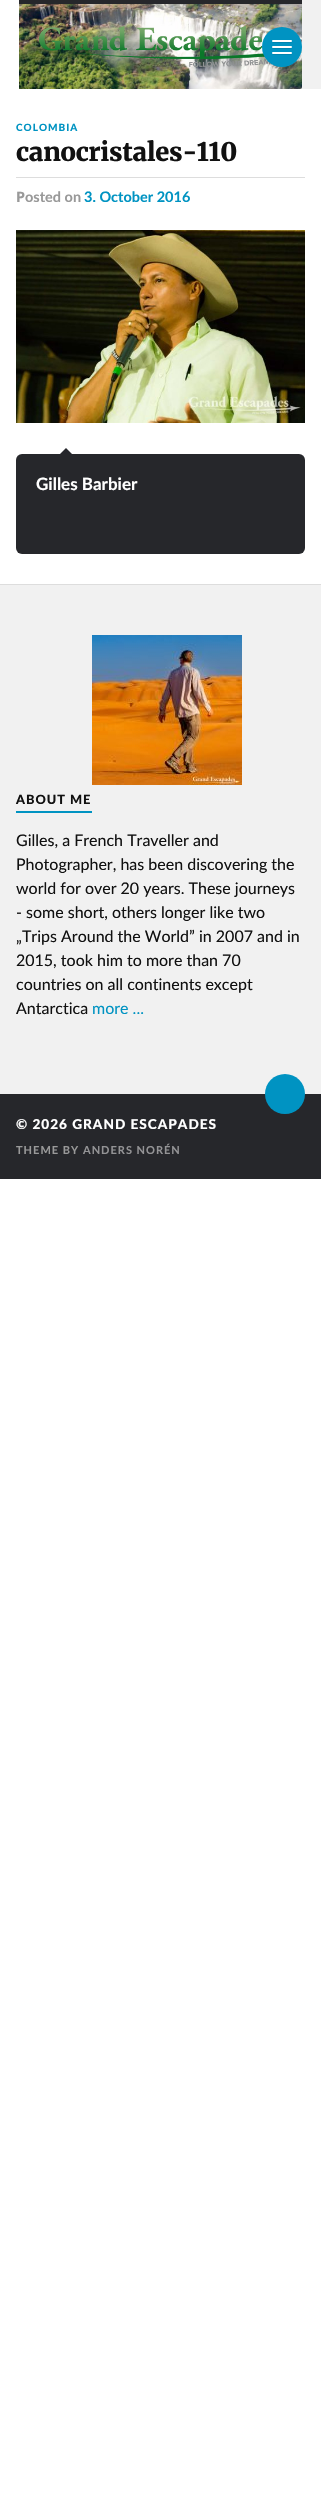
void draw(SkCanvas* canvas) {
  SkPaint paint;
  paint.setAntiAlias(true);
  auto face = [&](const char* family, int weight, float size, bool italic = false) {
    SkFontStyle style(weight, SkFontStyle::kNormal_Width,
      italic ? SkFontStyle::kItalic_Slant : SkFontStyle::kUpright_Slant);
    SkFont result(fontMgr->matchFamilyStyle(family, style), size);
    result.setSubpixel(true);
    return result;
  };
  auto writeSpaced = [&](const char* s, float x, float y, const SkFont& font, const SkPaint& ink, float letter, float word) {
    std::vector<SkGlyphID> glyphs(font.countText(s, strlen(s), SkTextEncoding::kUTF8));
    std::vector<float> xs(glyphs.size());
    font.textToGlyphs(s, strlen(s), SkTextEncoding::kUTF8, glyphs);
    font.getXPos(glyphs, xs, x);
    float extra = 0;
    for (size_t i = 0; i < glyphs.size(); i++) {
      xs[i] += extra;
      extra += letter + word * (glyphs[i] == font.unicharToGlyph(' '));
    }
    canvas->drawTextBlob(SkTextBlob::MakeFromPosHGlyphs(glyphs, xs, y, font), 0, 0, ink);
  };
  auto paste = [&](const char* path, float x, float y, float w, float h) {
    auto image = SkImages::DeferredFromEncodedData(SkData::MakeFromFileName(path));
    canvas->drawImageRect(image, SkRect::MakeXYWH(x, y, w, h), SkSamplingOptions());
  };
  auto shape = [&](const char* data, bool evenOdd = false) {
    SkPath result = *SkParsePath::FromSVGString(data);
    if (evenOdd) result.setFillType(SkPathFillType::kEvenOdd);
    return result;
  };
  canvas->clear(0xffffffff);
  paint.setColor(0xfff1f1f1);
  canvas->drawRect(SkRect::MakeXYWH(302, 0, 19, 89), paint);
  paste("img/1.png", 19, 4, 283, 85);
  paint.setColor(0xff26272b);
  canvas->drawRect(SkRect::MakeXYWH(19, 0, 283, 4), paint);
  paste("img/2.png", 39, 26, 263, 41);
  paint.setColor(0x1a000000);
  canvas->drawPath(shape("M262 48C261 76 303 76 302 48C301 73 263 73 262 48Z"), paint);
  paint.setColor(0xff0093c2);
  canvas->drawCircle(282, 47, 20, paint);
  paint.setColor(0xff0084af);
  canvas->drawPath(shape("M272 41.5C271 43 274 43 276 43H288C290 43 293 43 292 41.5L291 42H273Z"), paint);
  paint.setColor(0xffffffff);
  canvas->drawRoundRect(SkRect::MakeXYWH(272, 40, 20, 2), 1, 1, paint);
  paint.setColor(0xff0084af);
  canvas->drawPath(shape("M272 47.5C271 49 274 49 276 49H288C290 49 293 49 292 47.5L291 48H273Z"), paint);
  paint.setColor(0xffffffff);
  canvas->drawRoundRect(SkRect::MakeXYWH(272, 46, 20, 2), 1, 1, paint);
  paint.setColor(0xff0084af);
  canvas->drawPath(shape("M272 53.5C271 55 274 55 276 55H288C290 55 293 55 292 53.5L291 54H273Z"), paint);
  paint.setColor(0xffffffff);
  canvas->drawRoundRect(SkRect::MakeXYWH(272, 52, 20, 2), 1, 1, paint);
  paint.setColor(0xffdddddd);
  canvas->drawRect(SkRect::MakeXYWH(16, 177, 289, 1), paint);
  paste("img/3.png", 16, 230, 289, 193);
  paint.setColor(0xff26272b);
  canvas->drawRoundRect(SkRect::MakeXYWH(16, 454, 289, 100), 6, 6, paint);
  paint.setColor(0xff25262b);
  canvas->drawPath(shape("M72 454H60L66 448Z"), paint);
  paint.setColor(0xfff1f1f1);
  canvas->drawRect(SkRect::MakeXYWH(0, 585, 321, 509), paint);
  paint.setColor(0xffdddddd);
  canvas->drawRect(SkRect::MakeXYWH(0, 584, 321, 1), paint);
  paste("img/4.png", 92, 635, 150, 150);
  paint.setColor(0xff0093c2);
  canvas->drawRect(SkRect::MakeXYWH(16, 811, 76, 2), paint);
  paint.setColor(0xff26272b);
  canvas->drawRect(SkRect::MakeXYWH(0, 1094, 321, 85), paint);
  paint.setColor(0xff0093c2);
  canvas->drawCircle(285, 1094, 20, paint);
  auto f0 = face("Lato", 900, 10);
  writeSpaced("COLOMBIA", 16, 131, f0, paint, 1, 0);
  auto f1 = face("Merriweather", 900, 25.5f);
  paint.setColor(0xff111111);
  writeSpaced("canocristales-110", 16, 161, f1, paint, -0.25f, 0);
  auto f2 = face("Noto Sans", 700, 14.5f);
  paint.setColor(0xff999999);
  canvas->drawString("P", 16, 202, f2, paint);
  auto f3 = face("Lato", 700, 14.5f);
  canvas->drawString("osted on", 25, 202, f3, paint);
  paint.setColor(0xff0093c2);
  canvas->drawString("3. October 2016", 84, 202, f3, paint);
  auto f4 = face("Lato", 700, 17);
  paint.setColor(0xffffffff);
  canvas->drawString("Gilles Barbier", 36, 490, f4, paint);
  auto f5 = face("Lato", 900, 12.75f);
  paint.setColor(0xff111111);
  writeSpaced("ABOUT ME", 16, 804, f5, paint, 1, 0);
  auto f6 = face("Lato", 400, 16);
  {
    const struct { const char* s; float x, y; } items[] = {
      {"Gilles, a French Traveller and", 16, 846},
      {"Photographer, has been discovering the", 16, 870},
      {"world for over 20 years. These journeys", 16, 894},
      {"- some short, others longer like two", 16, 918},
      {"„Trips Around the World” in 2007 and in", 16, 942},
      {"2015, took him to more than 70", 16, 966},
      {"countries on all continents except", 16, 990},
      {"Antarctica", 16, 1014},
    };
    for (auto [s, x, y] : items) {
      canvas->drawString(s, x, y, f6, paint);
    }
  }
  paint.setColor(0xff0093c2);
  canvas->drawString("more ...", 92, 1014, f6, paint);
  auto f7 = face("Lato", 900, 13.6f);
  paint.setColor(0xffffffff);
  writeSpaced("© 2026 GRAND ESCAPADES", 16, 1129, f7, paint, 1, 0);
  auto f8 = face("Lato", 700, 11);
  paint.setColor(0xff999999);
  writeSpaced("THEME BY", 16, 1154, f8, paint, 1, 0);
  paint.setColor(0xff939395);
  writeSpaced("ANDERS NORÉN", 83, 1154, f8, paint, 1, 0);
}
